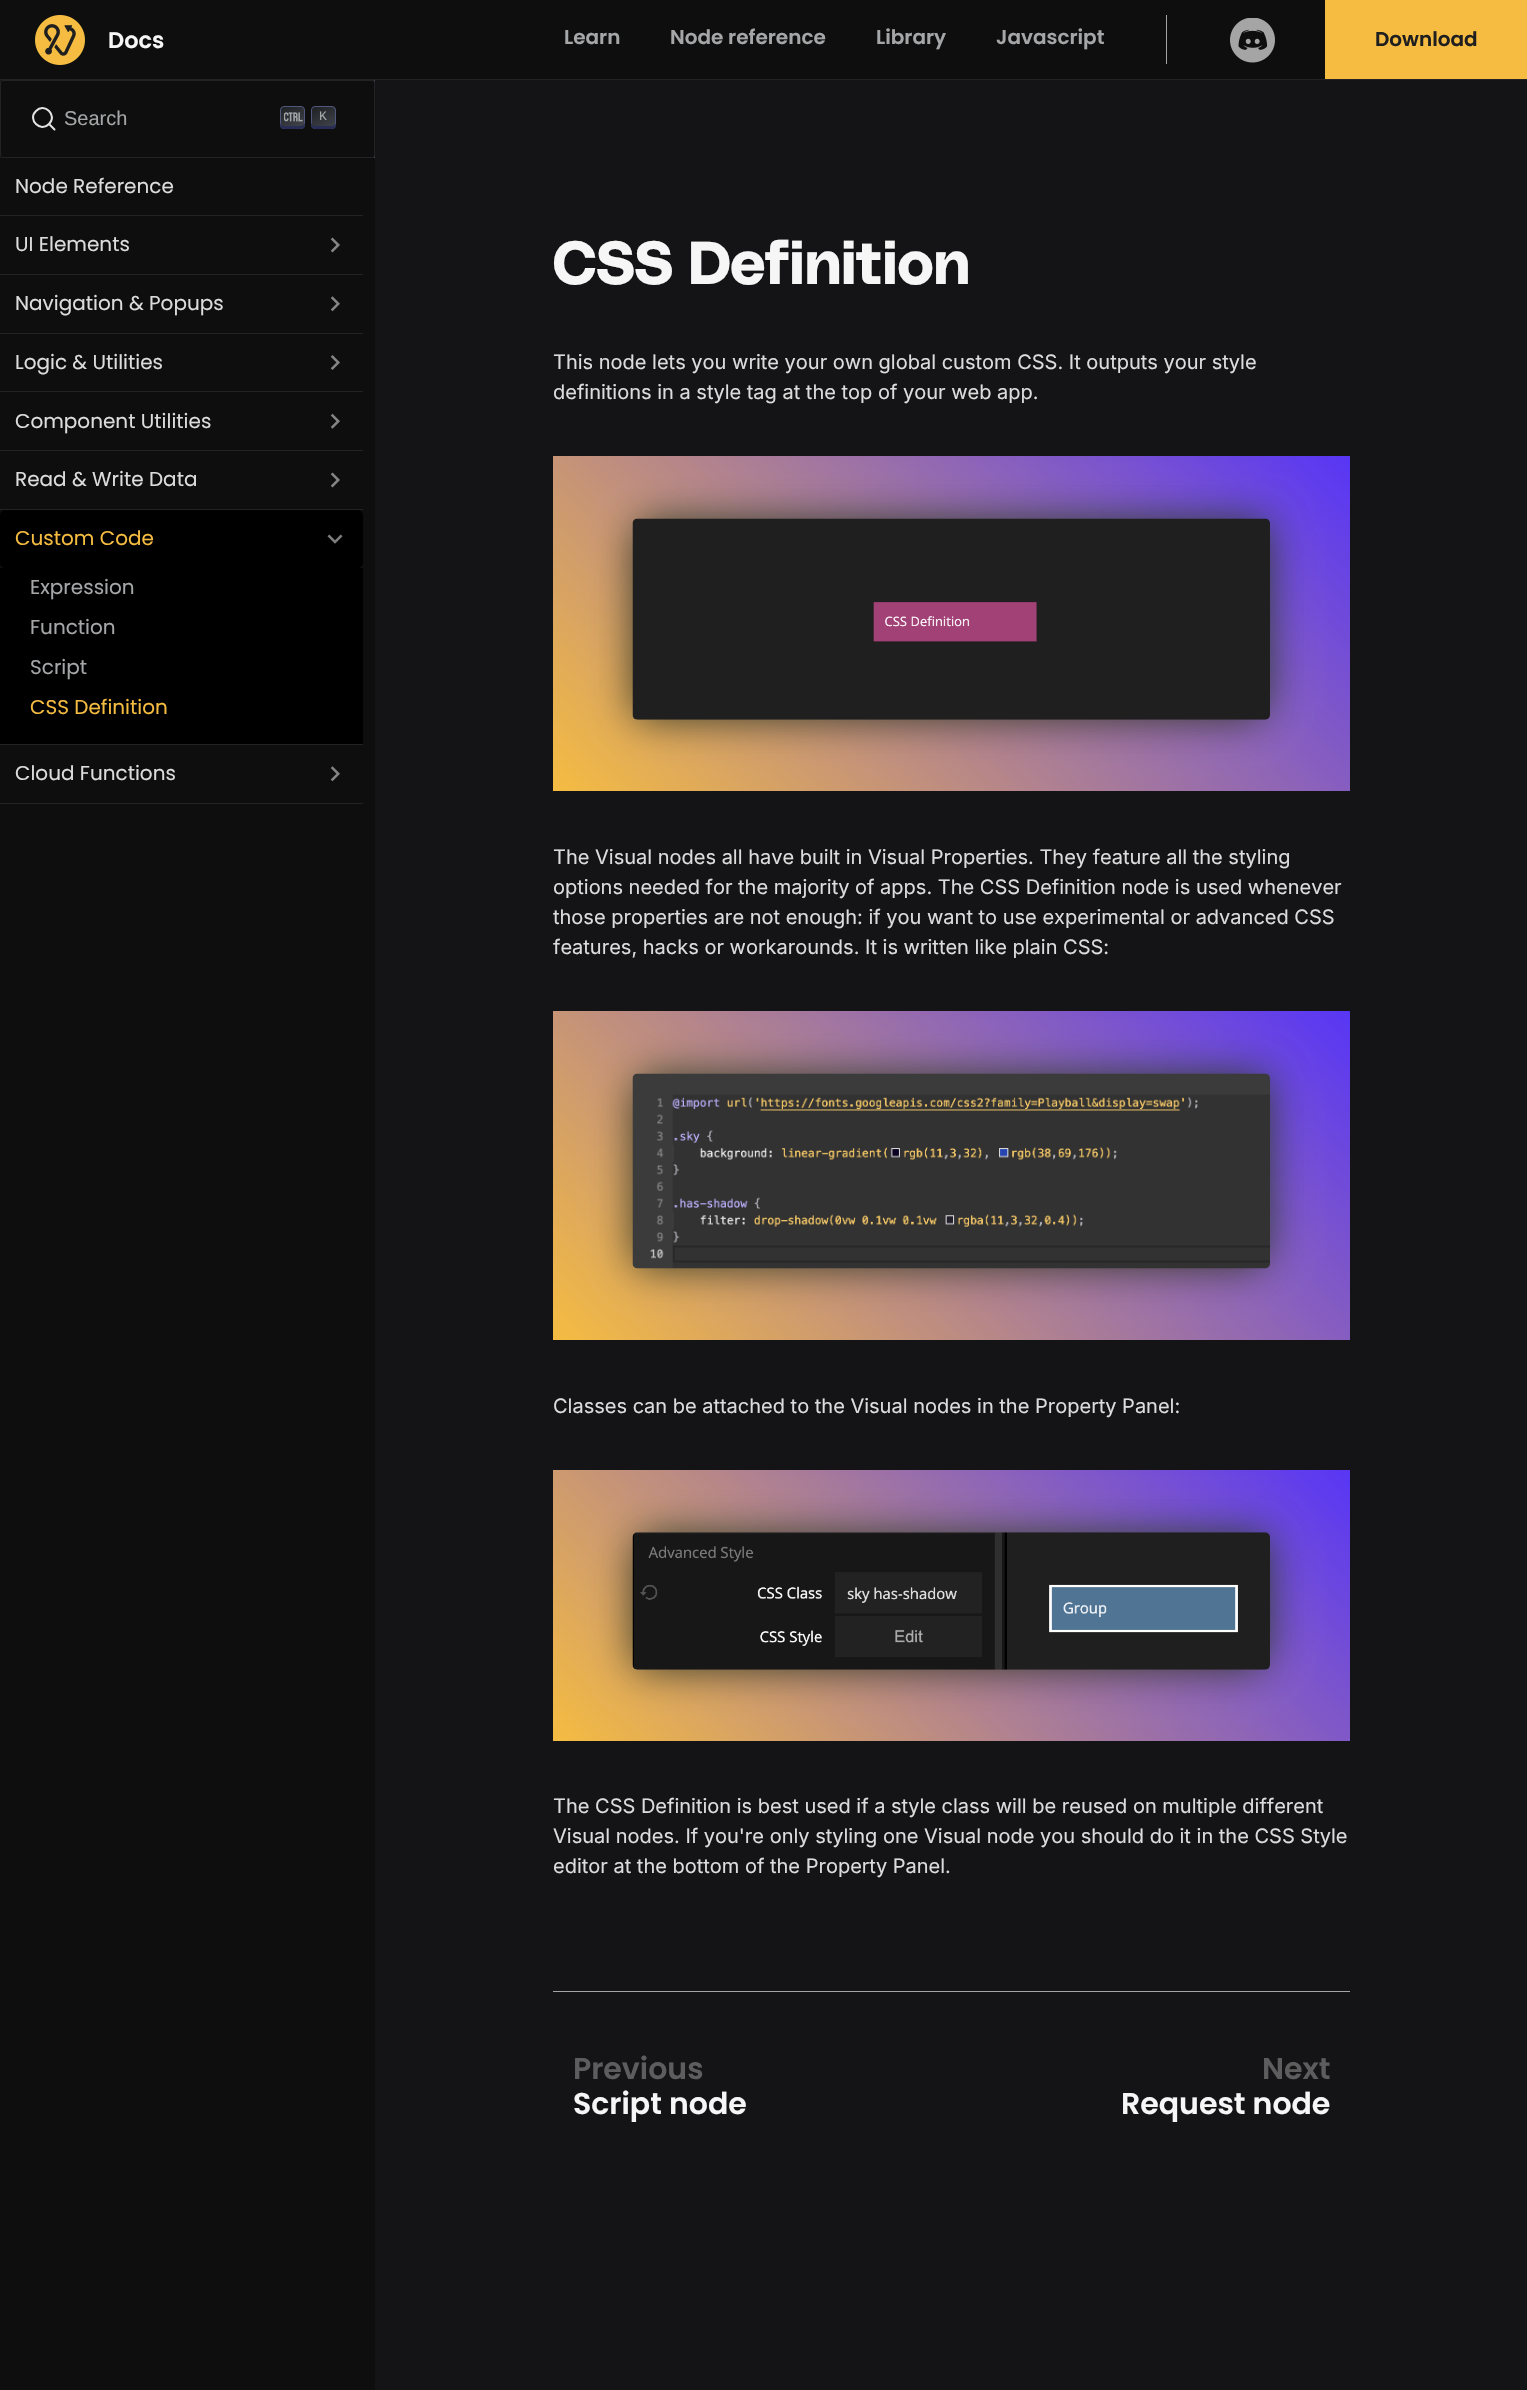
void draw(SkCanvas* canvas) {
  SkPaint paint;
  paint.setAntiAlias(true);
  auto face = [&](const char* family, int weight, float size, bool italic = false) {
    SkFontStyle style(weight, SkFontStyle::kNormal_Width,
      italic ? SkFontStyle::kItalic_Slant : SkFontStyle::kUpright_Slant);
    SkFont result(fontMgr->matchFamilyStyle(family, style), size);
    result.setSubpixel(true);
    return result;
  };
  auto paste = [&](const char* path, float x, float y, float w, float h) {
    auto image = SkImages::DeferredFromEncodedData(SkData::MakeFromFileName(path));
    canvas->drawImageRect(image, SkRect::MakeXYWH(x, y, w, h), SkSamplingOptions());
  };
  auto shape = [&](const char* data, bool evenOdd = false) {
    SkPath result = *SkParsePath::FromSVGString(data);
    if (evenOdd) result.setFillType(SkPathFillType::kEvenOdd);
    return result;
  };
  canvas->clear(0xff141416);
  paint.setColor(0xff0e0e0e);
  canvas->drawRect(SkRect::MakeXYWH(0, 0, 1325, 79), paint);
  paint.setColor(0xff232326);
  canvas->drawRect(SkRect::MakeXYWH(0, 79, 1527, 1), paint);
  paste("img/1.png", 35, 15, 50, 50);
  paint.setColor(0xffa5a5a5);
  canvas->drawRect(SkRect::MakeXYWH(1166, 15, 1, 49), paint);
  paste("img/2.png", 1230, 18, 45, 45);
  paint.setColor(0xfff5bc41);
  canvas->drawRect(SkRect::MakeXYWH(1325, 0, 202, 79), paint);
  paint.setColor(0xff444950);
  canvas->drawRect(SkRect::MakeXYWH(374, 80, 1, 78), paint);
  paint.setColor(0xff0e0e0e);
  canvas->drawRoundRect(SkRect::MakeXYWH(0.5f, 80.5f, 374, 77), 2, 2, paint);
  paint.setStroke(true);
  paint.setStrokeWidth(1);
  paint.setColor(0xff232326);
  canvas->drawRoundRect(SkRect::MakeXYWH(0.5f, 80.5f, 374, 77), 2, 2, paint);
  paint.setStrokeWidth(2);
  paint.setStrokeCap(SkPaint::kRound_Cap);
  paint.setStrokeJoin(SkPaint::kRound_Join);
  paint.setColor(0xffe3e3e3);
  canvas->drawPath(shape("M49 124L54.5 129.5L49 124C40.5 133 27 119.5 36 111C44.5 102 58 115.5 49 124Z"), paint);
  paint.setStroke(false);
  {
    const SkColor colors[] = {0xff444950, 0xff1c1e21};
    const float stops[] = {0, 1};
    const SkPoint ends[] = {{299, 132}, {286, 103}};
    paint.setShader(SkGradientShader::MakeLinear(ends, colors, stops, 2, SkTileMode::kClamp));
    paint.setAlpha(255);
  }
  canvas->drawRoundRect(SkRect::MakeXYWH(280.5f, 106.5f, 24, 22), 3.5f, 3.5f, paint);
  paint.setStroke(true);
  paint.setStrokeWidth(1);
  paint.setStrokeCap(SkPaint::kButt_Cap);
  paint.setStrokeJoin(SkPaint::kMiter_Join);
  paint.setShader(nullptr);
  paint.setColor(0xff51577d);
  canvas->drawRoundRect(SkRect::MakeXYWH(280.5f, 106.5f, 24, 22), 3.5f, 3.5f, paint);
  paint.setStroke(false);
  paint.setColor(0xff282d55);
  canvas->drawPath(shape("M305 122.5C304.5 125 303 126 298 126H284C281.5 126 280.5 124.5 280 123C280 128.5 281.5 129 287 129H298C304 129 305 128.5 305 122.5Z"), paint);
  paste("img/3.png", 284, 112, 19, 10);
  {
    const SkColor colors[] = {0xff444950, 0xff1c1e21};
    const float stops[] = {0, 1};
    const SkPoint ends[] = {{331, 132}, {317, 103}};
    paint.setShader(SkGradientShader::MakeLinear(ends, colors, stops, 2, SkTileMode::kClamp));
    paint.setAlpha(255);
  }
  canvas->drawRoundRect(SkRect::MakeXYWH(311.5f, 106.5f, 24, 22), 3.5f, 3.5f, paint);
  paint.setStroke(true);
  paint.setShader(nullptr);
  paint.setColor(0xff51577d);
  canvas->drawRoundRect(SkRect::MakeXYWH(311.5f, 106.5f, 24, 22), 3.5f, 3.5f, paint);
  paint.setStroke(false);
  paint.setColor(0xff282d55);
  canvas->drawPath(shape("M336 123C335.5 125 334 126 330 126H315C312 126 311 123.5 311 120.5V125C311 127 313 129 315 129H332C334 129 336 127 336 125Z"), paint);
  {
    const struct { float x, y, w, h; SkColor color; } items[] = {
      {0, 158, 375, 2232, 0xff0e0e0e},
      {0, 215, 363, 1, 0xff232326},
      {0, 274, 363, 1, 0xff232326},
    };
    for (auto [x, y, w, h, color] : items) {
      paint.setColor(color);
      canvas->drawRect(SkRect::MakeXYWH(x, y, w, h), paint);
    }
  }
  paste("img/4.png", 330, 237, 10, 16);
  canvas->drawRect(SkRect::MakeXYWH(0, 333, 363, 1), paint);
  paste("img/5.png", 330, 296, 10, 16);
  canvas->drawRect(SkRect::MakeXYWH(0, 391, 363, 1), paint);
  paste("img/6.png", 330, 355, 10, 15);
  canvas->drawRect(SkRect::MakeXYWH(0, 450, 363, 1), paint);
  paste("img/7.png", 330, 413, 10, 16);
  canvas->drawRect(SkRect::MakeXYWH(0, 509, 363, 1), paint);
  paste("img/4.png", 330, 472, 10, 16);
  canvas->drawRect(SkRect::MakeXYWH(0, 744, 363, 1), paint);
  paint.setColor(0xff000000);
  canvas->drawRoundRect(SkRect::MakeXYWH(0, 510, 363, 58), 5, 5, paint);
  paste("img/8.png", 327, 534, 16, 10);
  canvas->drawRect(SkRect::MakeXYWH(0, 568, 363, 176), paint);
  paint.setColor(0xff232326);
  canvas->drawRect(SkRect::MakeXYWH(0, 803, 363, 1), paint);
  paste("img/5.png", 330, 766, 10, 16);
  {
    const SkColor colors[] = {0xfff5bc41, 0xff5836f5};
    const float stops[] = {0, 1};
    const SkPoint ends[] = {{668, 907}, {1234, 341}};
    paint.setShader(SkGradientShader::MakeLinear(ends, colors, stops, 2, SkTileMode::kClamp));
    paint.setAlpha(255);
  }
  canvas->drawRect(SkRect::MakeXYWH(553, 456, 797, 335), paint);
  paint.setShader(nullptr);
  paint.setColor(0xab203c2c);
  paint.setMaskFilter(SkMaskFilter::MakeBlur(kNormal_SkBlurStyle, 19));
  canvas->drawRect(SkRect::MakeXYWH(645, 519, 625, 189), paint);
  paint.setMaskFilter(nullptr);
  paint.setColor(0xab38341c);
  paint.setMaskFilter(SkMaskFilter::MakeBlur(kNormal_SkBlurStyle, 19));
  canvas->drawRect(SkRect::MakeXYWH(633, 531, 625, 189), paint);
  paint.setMaskFilter(nullptr);
  paste("img/9.png", 632, 518, 638, 202);
  {
    const SkColor colors[] = {0xfff5bc41, 0xff5836f5};
    const float stops[] = {0, 1};
    const SkPoint ends[] = {{670, 1457}, {1233, 894}};
    paint.setShader(SkGradientShader::MakeLinear(ends, colors, stops, 2, SkTileMode::kClamp));
    paint.setAlpha(255);
  }
  canvas->drawRect(SkRect::MakeXYWH(553, 1011, 797, 329), paint);
  paint.setShader(nullptr);
  paint.setColor(0xab203c2c);
  paint.setMaskFilter(SkMaskFilter::MakeBlur(kNormal_SkBlurStyle, 19));
  canvas->drawRect(SkRect::MakeXYWH(645, 1074, 625, 182), paint);
  paint.setMaskFilter(nullptr);
  paint.setColor(0xab38341c);
  paint.setMaskFilter(SkMaskFilter::MakeBlur(kNormal_SkBlurStyle, 19));
  canvas->drawRect(SkRect::MakeXYWH(633, 1086, 625, 183), paint);
  paint.setMaskFilter(nullptr);
  paste("img/10.png", 632, 1073, 638, 196);
  {
    const SkColor colors[] = {0xfff5bc41, 0xff5836f5};
    const float stops[] = {0, 1};
    const SkPoint ends[] = {{684, 1873}, {1218, 1338}};
    paint.setShader(SkGradientShader::MakeLinear(ends, colors, stops, 2, SkTileMode::kClamp));
    paint.setAlpha(255);
  }
  canvas->drawRect(SkRect::MakeXYWH(553, 1470, 797, 271), paint);
  paint.setShader(nullptr);
  paint.setColor(0xab203c2c);
  paint.setMaskFilter(SkMaskFilter::MakeBlur(kNormal_SkBlurStyle, 19));
  canvas->drawRect(SkRect::MakeXYWH(645, 1533, 625, 125), paint);
  paint.setMaskFilter(nullptr);
  paint.setColor(0xab38341c);
  paint.setMaskFilter(SkMaskFilter::MakeBlur(kNormal_SkBlurStyle, 19));
  canvas->drawRect(SkRect::MakeXYWH(633, 1545, 625, 125), paint);
  paint.setMaskFilter(nullptr);
  paste("img/11.png", 632, 1532, 638, 138);
  paint.setColor(0xffa5a5a5);
  canvas->drawRect(SkRect::MakeXYWH(553, 1991, 797, 1), paint);
  auto f0 = face("Poppins", 600, 22.5f);
  paint.setColor(0xfff6f6f6);
  canvas->drawString("Docs", 108, 48, f0, paint);
  auto f1 = face("Poppins", 600, 20);
  paint.setColor(0xffa4a6a8);
  {
    const struct { const char* s; float x, y; } items[] = {
      {"Learn", 564, 44},
      {"Node reference", 670, 44},
      {"Library", 876, 44},
      {"Javascript", 996, 44},
    };
    for (auto [s, x, y] : items) {
      canvas->drawString(s, x, y, f1, paint);
    }
  }
  paint.setColor(0xff1f1f1f);
  canvas->drawString("Download", 1375, 46, f1, paint);
  auto f2 = face("Liberation Sans", 400, 20);
  paint.setColor(0xffa4a6a8);
  canvas->drawString("Search", 64, 125, f2, paint);
  auto f3 = face("Liberation Mono", 400, 13);
  canvas->drawString("K", 319, 120, f3, paint);
  auto f4 = face("Poppins", 400, 20);
  paint.setColor(0xffdcdcdc);
  {
    const struct { const char* s; float x, y; } items[] = {
      {"Node Reference", 15, 193},
      {"UI Elements", 15, 251},
      {"Navigation & Popups", 15, 310},
      {"Logic & Utilities", 15, 369},
      {"Component Utilities", 15, 428},
      {"Read & Write Data", 15, 486},
    };
    for (auto [s, x, y] : items) {
      canvas->drawString(s, x, y, f4, paint);
    }
  }
  paint.setColor(0xfff5bc41);
  canvas->drawString("Custom Code", 15, 545, f4, paint);
  paint.setColor(0xffa4a6a8);
  {
    const struct { const char* s; float x, y; } items[] = {
      {"Expression", 30, 594},
      {"Function", 30, 634},
      {"Script", 30, 674},
    };
    for (auto [s, x, y] : items) {
      canvas->drawString(s, x, y, f4, paint);
    }
  }
  paint.setColor(0xfff5bc41);
  canvas->drawString("CSS Definition", 30, 714, f4, paint);
  paint.setColor(0xffdcdcdc);
  canvas->drawString("Cloud Functions", 15, 780, f4, paint);
  auto f5 = face("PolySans", 700, 60);
  paint.setColor(0xfff6f6f6);
  canvas->drawString("CSS Definition", 553, 284, f5, paint);
  auto f6 = face("Inter", 400, 20);
  paint.setColor(0xffdcdcdc);
  {
    const struct { const char* s; float x, y; } items[] = {
      {"This node lets you write your own global custom CSS. It outputs your style", 553, 369},
      {"definitions in a style tag at the top of your web app.", 553, 399},
      {"The Visual nodes all have built in Visual Properties. They feature all the styling", 553, 864},
      {"options needed for the majority of apps. The CSS Definition node is used whenever", 553, 894},
      {"those properties are not enough: if you want to use experimental or advanced CSS", 553, 924},
      {"features, hacks or workarounds. It is written like plain CSS:", 553, 954},
      {"Classes can be attached to the Visual nodes in the Property Panel:", 553, 1413},
      {"The CSS Definition is best used if a style class will be reused on multiple different", 553, 1813},
      {"Visual nodes. If you're only styling one Visual node you should do it in the CSS Style", 553, 1843},
      {"editor at the bottom of the Property Panel.", 553, 1873},
    };
    for (auto [s, x, y] : items) {
      canvas->drawString(s, x, y, f6, paint);
    }
  }
  auto f7 = face("Poppins", 600, 30);
  paint.setColor(0xff5d5d5e);
  canvas->drawString("Previous", 573, 2079, f7, paint);
  paint.setColor(0xfff6f6f6);
  canvas->drawString("Script node", 573, 2114, f7, paint);
  paint.setColor(0xff5d5d5e);
  canvas->drawString("Next", 1262, 2079, f7, paint);
  paint.setColor(0xfff6f6f6);
  canvas->drawString("Request node", 1121, 2114, f7, paint);
}
